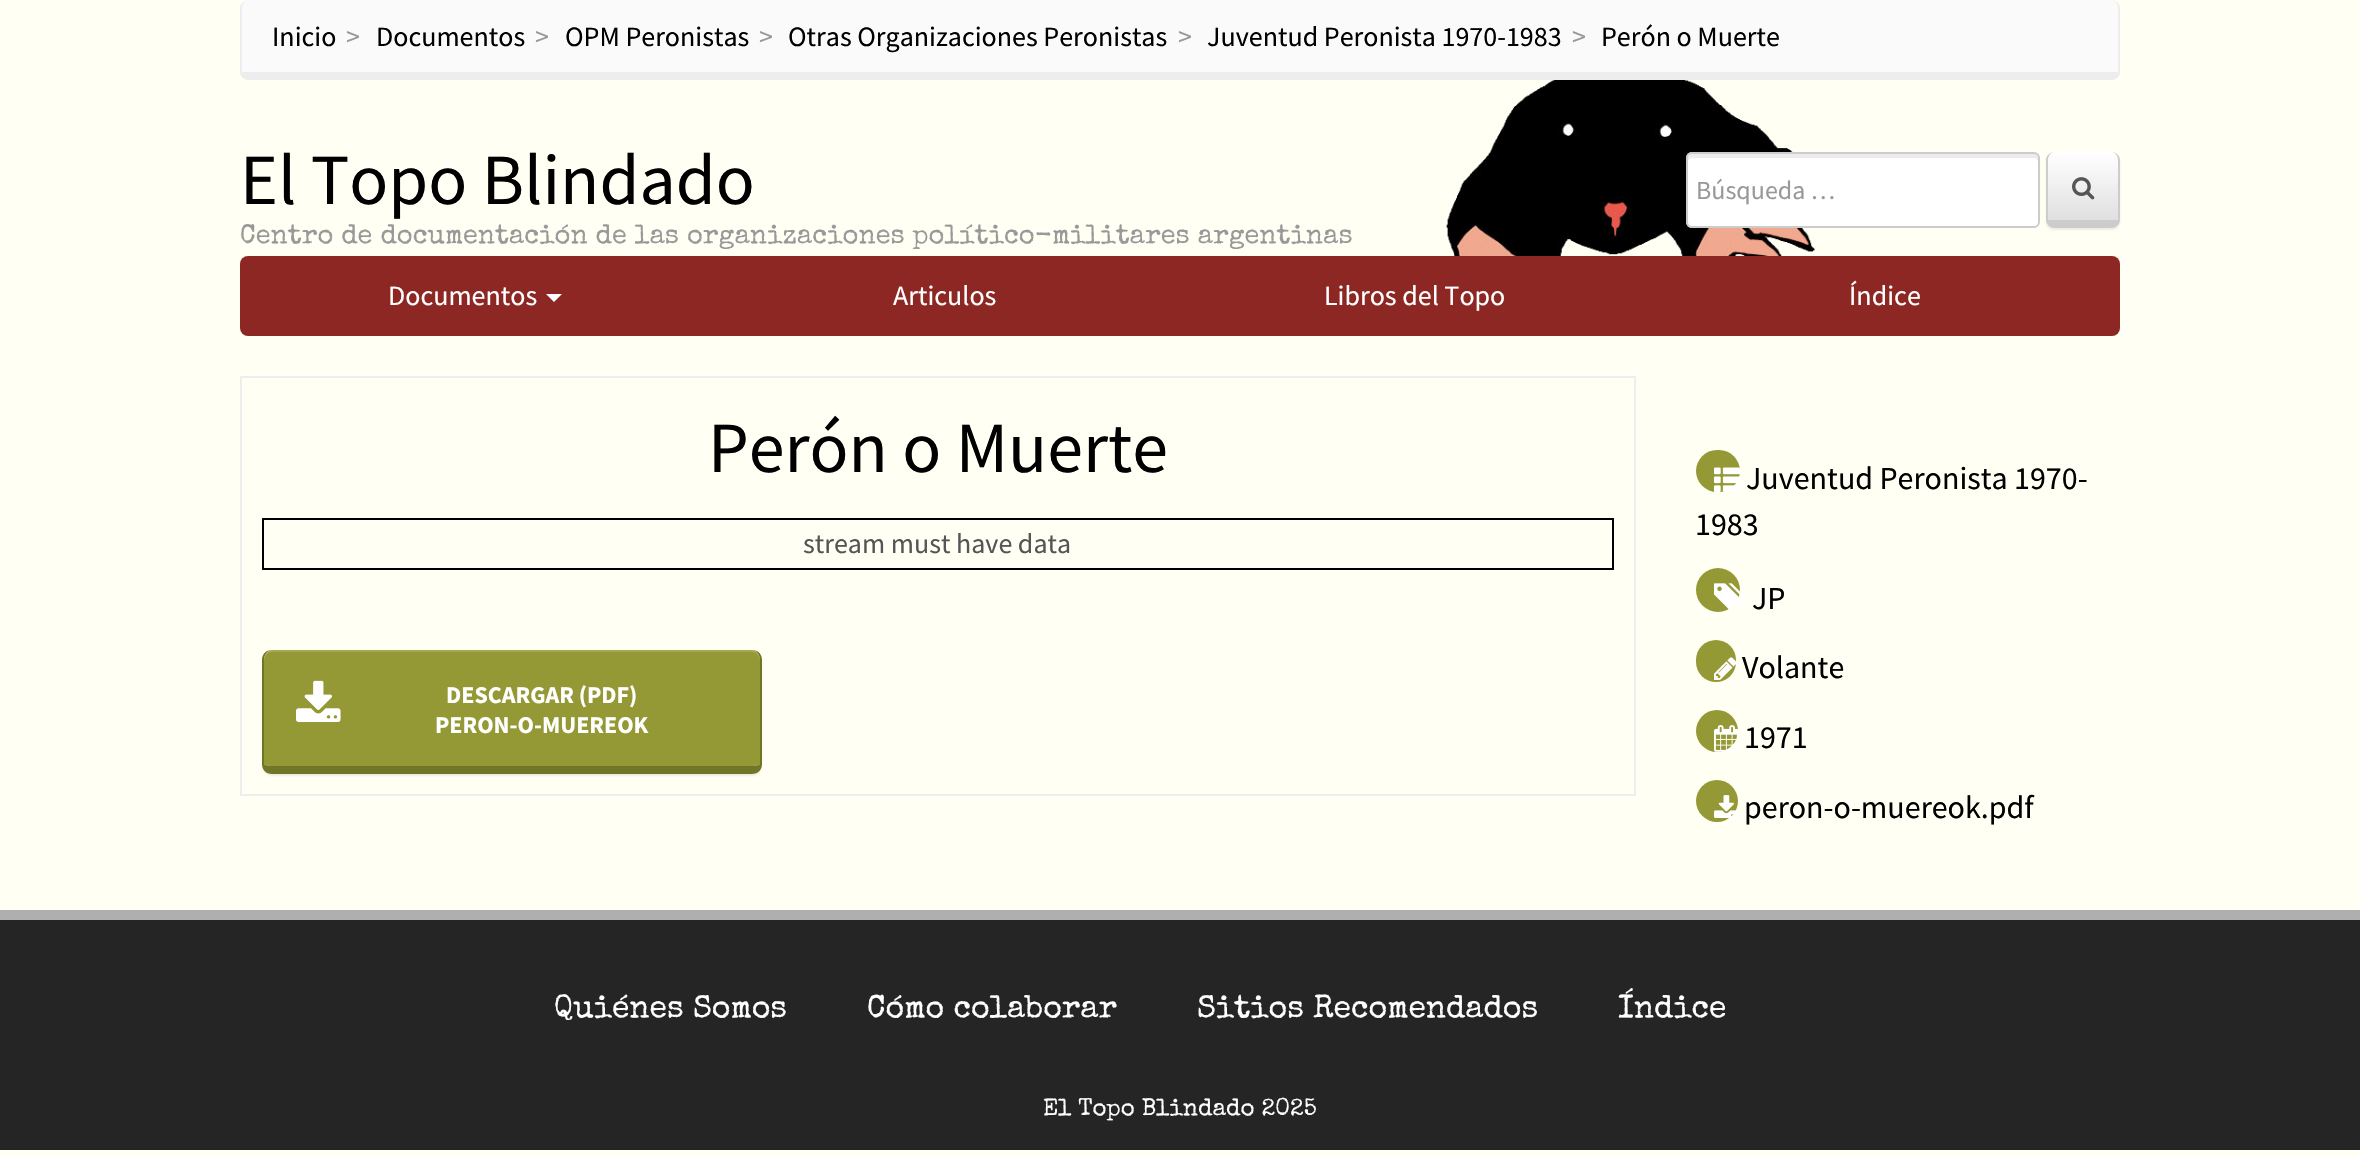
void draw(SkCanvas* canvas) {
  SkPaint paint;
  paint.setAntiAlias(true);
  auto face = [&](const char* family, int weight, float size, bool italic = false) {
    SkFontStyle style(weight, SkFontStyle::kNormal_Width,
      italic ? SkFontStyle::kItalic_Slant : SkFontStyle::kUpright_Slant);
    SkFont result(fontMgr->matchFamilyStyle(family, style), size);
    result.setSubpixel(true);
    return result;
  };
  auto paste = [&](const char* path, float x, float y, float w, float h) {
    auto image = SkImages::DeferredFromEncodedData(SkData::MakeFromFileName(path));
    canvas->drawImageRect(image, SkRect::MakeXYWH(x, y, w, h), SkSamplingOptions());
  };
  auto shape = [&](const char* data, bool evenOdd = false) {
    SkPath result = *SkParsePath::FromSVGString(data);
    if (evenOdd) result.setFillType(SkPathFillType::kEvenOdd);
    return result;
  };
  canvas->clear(0xfffffff3);
  paint.setColor(0xfffafafa);
  canvas->drawPath(shape("M248 0H2112C2115 0 2118 4 2118 8V72H242V8C242 4 245 0 248 0Z"), paint);
  paint.setColor(0xffededed);
  canvas->drawPath(shape("M248 0H2112C2116 0 2120 4 2120 8V72C2120 76 2116 80 2112 80H248C244 80 240 76 240 72V8C240 4 244 0 248 0ZM248 0H2112C2115 0 2118 4 2118 8V72H242V8C242 4 245 0 248 0Z", true), paint);
  paste("img/1.png", 1446, 80, 369, 176);
  paint.setColor(0xffffffff);
  canvas->drawRoundRect(SkRect::MakeXYWH(1686, 152, 354, 76), 6, 6, paint);
  paint.setColor(0xffececec);
  canvas->drawPath(shape("M1692 158H2034C2036 158 2038 160 2038 162C2038 159 2039 155 2035 154H1691C1687 155 1688 159 1688 162C1688 160 1690 158 1692 158Z"), paint);
  paint.setStroke(true);
  paint.setStrokeWidth(2);
  paint.setColor(0xffcccccc);
  canvas->drawRoundRect(SkRect::MakeXYWH(1687, 153, 352, 74), 5, 5, paint);
  paint.setStroke(false);
  paint.setColor(0x12000000);
  paint.setMaskFilter(SkMaskFilter::MakeBlur(kNormal_SkBlurStyle, 1));
  canvas->drawRoundRect(SkRect::MakeXYWH(2046, 154, 74, 76), 8, 8, paint);
  paint.setMaskFilter(nullptr);
  {
    const SkColor colors[] = {0xffffffff, 0xffe0e0e0};
    const float stops[] = {0, 1};
    const SkPoint ends[] = {{2083, 152}, {2083, 220}};
    paint.setShader(SkGradientShader::MakeLinear(ends, colors, stops, 2, SkTileMode::kClamp));
    paint.setAlpha(255);
  }
  canvas->drawPath(shape("M2054 152H2112C2115 152 2118 156 2118 160V220H2048V160C2048 156 2051 152 2054 152Z"), paint);
  paint.setShader(nullptr);
  paint.setColor(0xffcccccc);
  canvas->drawPath(shape("M2054 152H2112C2116 152 2120 156 2120 160V220C2120 224 2116 228 2112 228H2054C2050 228 2046 224 2046 220V160C2046 156 2050 152 2054 152ZM2054 152H2112C2115 152 2118 156 2118 160V220H2048V160C2048 156 2051 152 2054 152Z", true), paint);
  paste("img/2.png", 2072, 177, 23, 23);
  paint.setColor(0xff8c2723);
  canvas->drawRoundRect(SkRect::MakeXYWH(240, 256, 1880, 80), 8, 8, paint);
  paint.setColor(0xffffffff);
  canvas->drawPath(shape("M546 294H562L554 302Z"), paint);
  paint.setStroke(true);
  paint.setColor(0xffeeeeee);
  canvas->drawRect(SkRect::MakeXYWH(241, 377, 1394, 418), paint);
  paint.setColor(0xff000000);
  canvas->drawRect(SkRect::MakeXYWH(263, 519, 1350, 50), paint);
  paint.setStroke(false);
  paint.setColor(0x12000000);
  paint.setMaskFilter(SkMaskFilter::MakeBlur(kNormal_SkBlurStyle, 1));
  canvas->drawRoundRect(SkRect::MakeXYWH(262, 652, 500, 124), 10, 10, paint);
  paint.setMaskFilter(nullptr);
  paint.setColor(0xff949935);
  canvas->drawPath(shape("M272 650H752C756 650 760 654 760 660V764C760 765 756 766 752 766H272C268 766 264 765 264 764V660C264 654 268 650 272 650Z"), paint);
  paint.setColor(0x26ffffff);
  canvas->drawPath(shape("M272 652H752C756 652 760 656 760 662C760 657 758 650 752 650H270C265 652 264 657 264 662C264 656 268 652 272 652Z"), paint);
  paint.setColor(0xff717527);
  canvas->drawPath(shape("M272 650H752C758 650 762 654 762 660V764C762 770 758 774 752 774H272C266 774 262 770 262 764V660C262 654 266 650 272 650ZM272 650H752C756 650 760 654 760 660V764C760 765 756 766 752 766H272C268 766 264 765 264 764V660C264 654 268 650 272 650Z", true), paint);
  paste("img/3.png", 296, 680, 45, 42);
  paint.setColor(0xff949935);
  canvas->drawRoundRect(SkRect::MakeXYWH(1696, 450, 44, 42), 21, 21, paint);
  paste("img/4.png", 1714, 467, 27, 25);
  canvas->drawCircle(1718, 590, 22, paint);
  paste("img/5.png", 1714, 583, 33, 27);
  canvas->drawRoundRect(SkRect::MakeXYWH(1696, 640, 40, 42), 20, 20, paint);
  paste("img/6.png", 1714, 657, 23, 23);
  canvas->drawCircle(1717, 731, 21, paint);
  paste("img/7.png", 1714, 725, 25, 27);
  canvas->drawCircle(1717, 801, 21, paint);
  paste("img/8.png", 1714, 795, 25, 23);
  paint.setColor(0xff252525);
  canvas->drawRect(SkRect::MakeXYWH(0, 920, 2360, 230), paint);
  paint.setColor(0xffafafaf);
  canvas->drawRect(SkRect::MakeXYWH(0, 910, 2360, 10), paint);
  auto f0 = face("Source Sans Pro", 400, 28);
  paint.setColor(0xff000000);
  canvas->drawString("Inicio", 272, 46, f0, paint);
  paint.setColor(0xff999999);
  canvas->drawString(">", 346, 46, f0, paint);
  paint.setColor(0xff000000);
  canvas->drawString("Documentos", 376, 46, f0, paint);
  paint.setColor(0xff999999);
  canvas->drawString(">", 535, 46, f0, paint);
  paint.setColor(0xff000000);
  canvas->drawString("OPM Peronistas", 565, 46, f0, paint);
  paint.setColor(0xff999999);
  canvas->drawString(">", 759, 46, f0, paint);
  paint.setColor(0xff000000);
  canvas->drawString("Otras Organizaciones Peronistas", 788, 46, f0, paint);
  paint.setColor(0xff999999);
  canvas->drawString(">", 1178, 46, f0, paint);
  paint.setColor(0xff000000);
  canvas->drawString("Juventud Peronista 1970-1983", 1207, 46, f0, paint);
  paint.setColor(0xff999999);
  canvas->drawString(">", 1572, 46, f0, paint);
  paint.setColor(0xff000000);
  canvas->drawString("Perón o Muerte", 1601, 46, f0, paint);
  auto f1 = face("Source Sans Pro", 400, 72);
  canvas->drawString("El Topo Blindado", 240, 204, f1, paint);
  auto f2 = face("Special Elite", 400, 27.2f);
  paint.setColor(0xff999999);
  canvas->drawString("Centro de documentación de las organizaciones político-militares argentinas", 240, 243, f2, paint);
  auto f3 = face("Source Sans Pro", 400, 26);
  canvas->drawString("Búsqueda …", 1696, 199, f3, paint);
  paint.setColor(0xffffffff);
  {
    const struct { const char* s; float x, y; } items[] = {
      {"Documentos", 388, 305},
      {"Articulos", 893, 305},
      {"Libros del Topo", 1324, 305},
      {"Índice", 1849, 305},
    };
    for (auto [s, x, y] : items) {
      canvas->drawString(s, x, y, f0, paint);
    }
  }
  paint.setColor(0xff000000);
  canvas->drawString("Perón o Muerte", 708, 472, f1, paint);
  paint.setColor(0xff555555);
  canvas->drawString("stream must have data", 803, 553, f0, paint);
  auto f4 = face("Source Sans Pro", 700, 24);
  paint.setColor(0xffffffff);
  canvas->drawString("DESCARGAR (PDF)", 446, 703, f4, paint);
  canvas->drawString("PERON-O-MUEREOK", 435, 733, f4, paint);
  auto f5 = face("Source Sans Pro", 400, 32);
  paint.setColor(0xff000000);
  {
    const struct { const char* s; float x, y; } items[] = {
      {"Juventud Peronista 1970-", 1746, 489},
      {"1983", 1695, 535},
      {"JP", 1752, 609},
      {"Volante", 1742, 678},
      {"1971", 1744, 748},
      {"peron-o-muereok.pdf", 1744, 818},
    };
    for (auto [s, x, y] : items) {
      canvas->drawString(s, x, y, f5, paint);
    }
  }
  auto f6 = face("Special Elite", 400, 32);
  paint.setColor(0xffffffff);
  {
    const struct { const char* s; float x, y; } items[] = {
      {"Quiénes Somos", 554, 1017},
      {"Cómo colaborar", 867, 1017},
      {"Sitios Recomendados", 1197, 1017},
      {"Índice", 1618, 1017},
    };
    for (auto [s, x, y] : items) {
      canvas->drawString(s, x, y, f6, paint);
    }
  }
  auto f7 = face("Special Elite", 400, 24);
  canvas->drawString("El Topo Blindado 2025", 1043, 1115, f7, paint);
}
